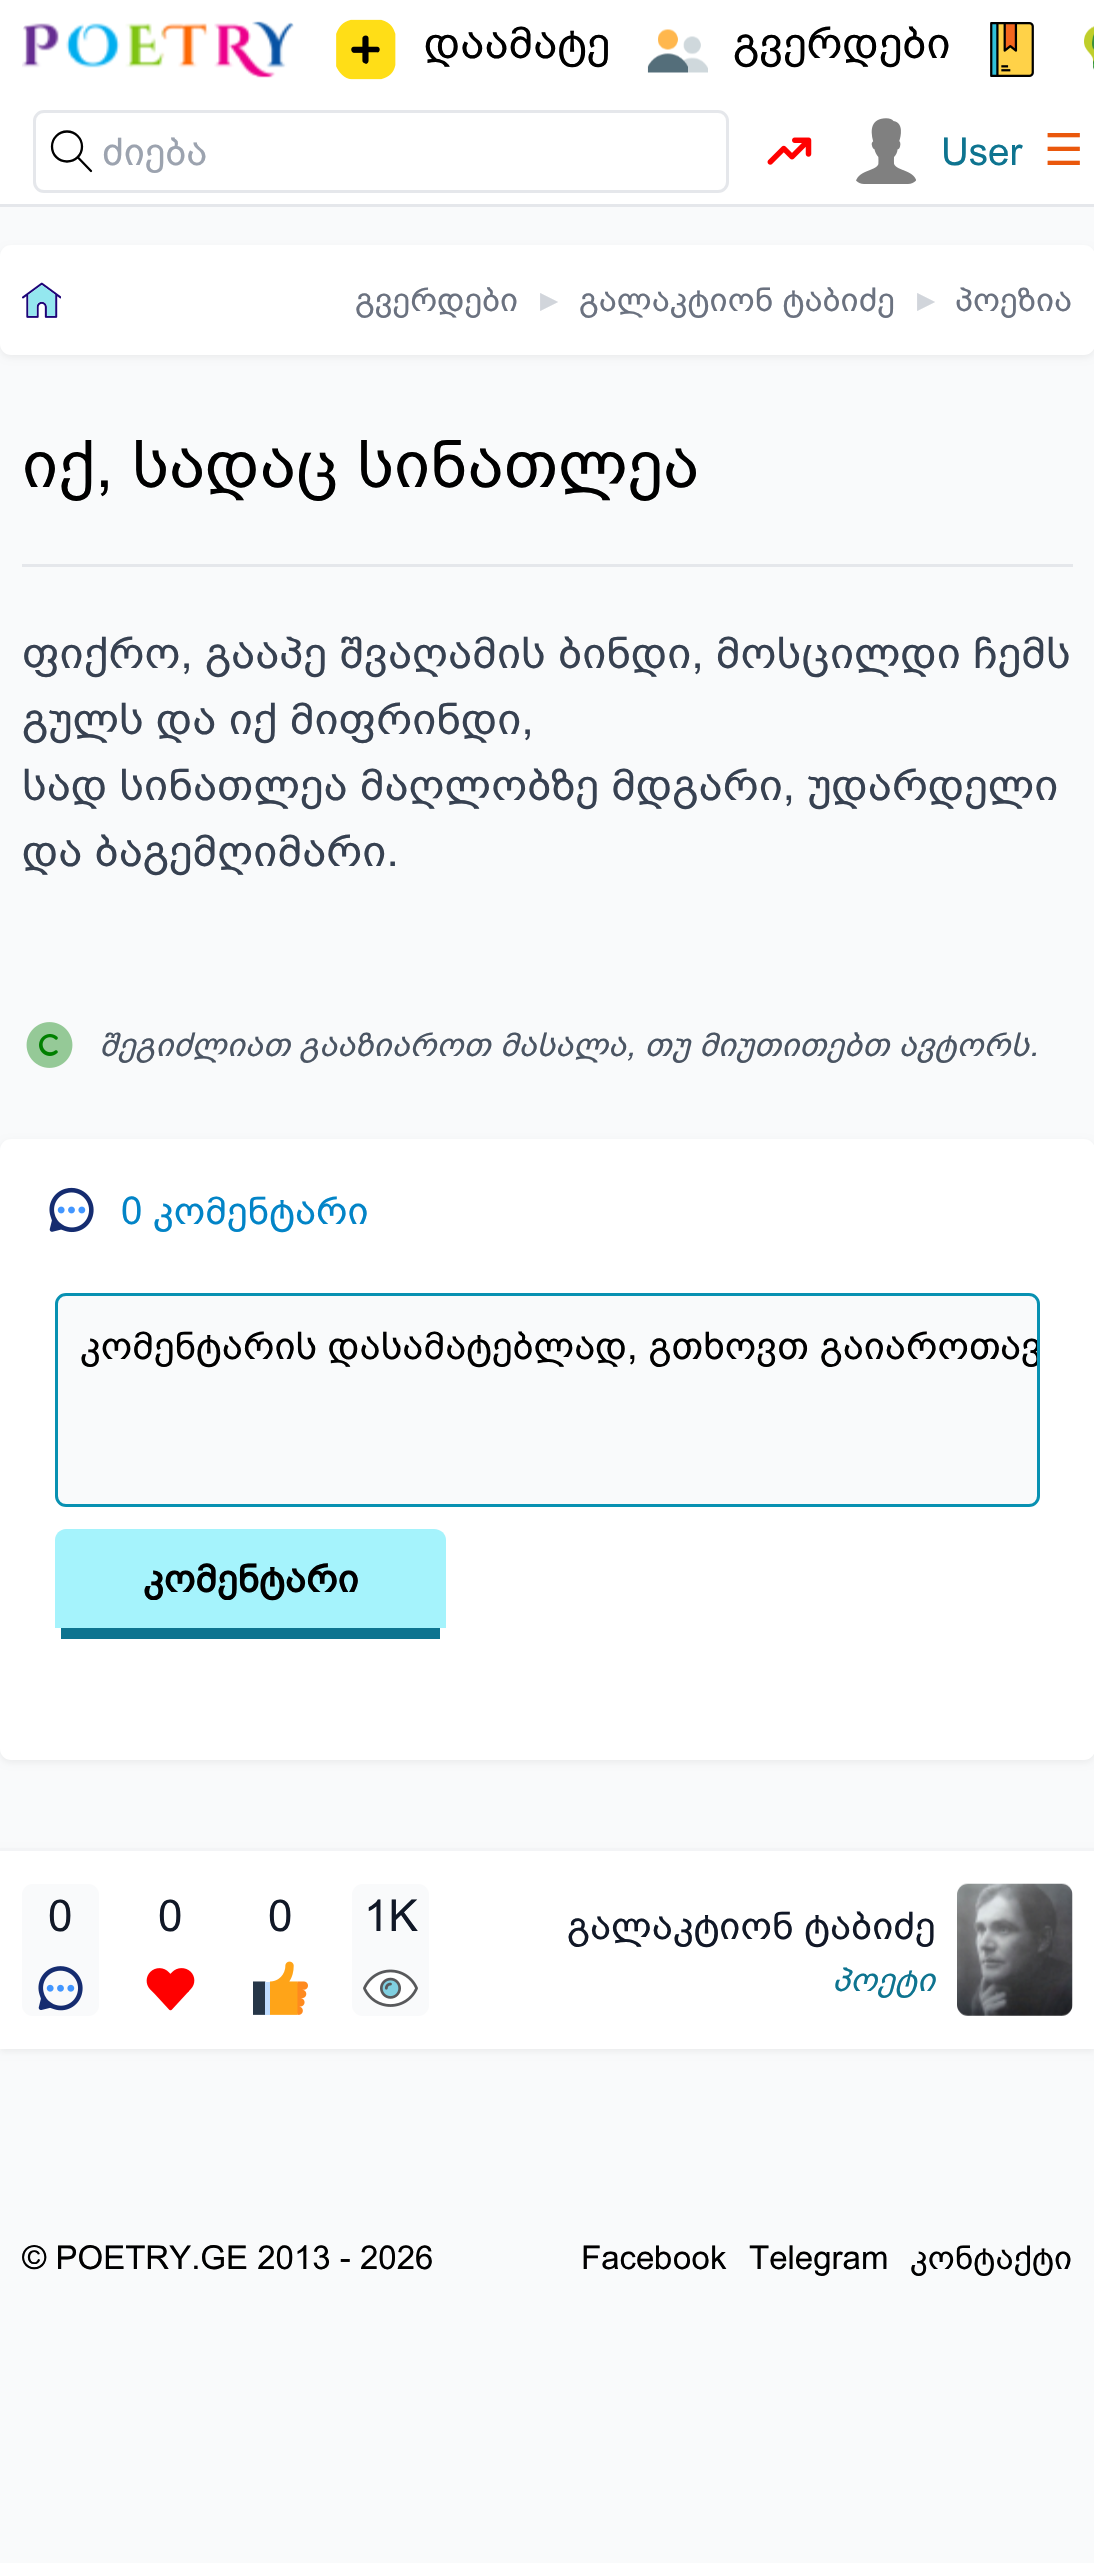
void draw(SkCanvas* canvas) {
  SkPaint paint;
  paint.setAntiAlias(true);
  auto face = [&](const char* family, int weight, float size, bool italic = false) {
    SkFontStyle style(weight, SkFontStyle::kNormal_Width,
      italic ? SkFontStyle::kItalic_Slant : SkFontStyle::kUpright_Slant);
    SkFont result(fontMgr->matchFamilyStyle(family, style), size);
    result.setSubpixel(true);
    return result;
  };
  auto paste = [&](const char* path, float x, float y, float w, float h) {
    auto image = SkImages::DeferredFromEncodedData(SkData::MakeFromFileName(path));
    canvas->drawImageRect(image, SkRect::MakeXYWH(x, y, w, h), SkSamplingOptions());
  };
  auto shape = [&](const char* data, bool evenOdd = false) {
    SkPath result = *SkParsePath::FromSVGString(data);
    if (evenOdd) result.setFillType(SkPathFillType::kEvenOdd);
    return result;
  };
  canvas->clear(0xfff9fafb);
  paint.setColor(0xffffffff);
  canvas->drawRect(SkRect::MakeXYWH(0, 0, 1094, 204), paint);
  paint.setColor(0xffe5e7eb);
  canvas->drawRect(SkRect::MakeXYWH(0, 204, 1094, 3), paint);
  paste("img/1.png", 22, 21, 272, 57);
  paste("img/2.png", 336, 19, 60, 61);
  paste("img/3.png", 647, 29, 61, 44);
  paste("img/4.png", 990, 22, 44, 55);
  paste("img/5.png", 1084, 26, 10, 44);
  paint.setStroke(true);
  paint.setStrokeWidth(3);
  canvas->drawRoundRect(SkRect::MakeXYWH(34.5f, 111.5f, 693, 80), 9.5f, 9.5f, paint);
  paint.setStrokeWidth(2.3f);
  paint.setStrokeCap(SkPaint::kRound_Cap);
  paint.setStrokeJoin(SkPaint::kRound_Join);
  paint.setColor(0xff000000);
  canvas->drawPath(shape("M82 146.5C82 155 75.5 161.5 67 161.5C58.5 161.5 52 155 52 146.5C52 138.5 58.5 131.5 67 131.5C75.5 131.5 82 138.5 82 146.5ZM78 157.5L91 171"), paint);
  paste("img/6.png", 767, 137, 45, 28);
  paste("img/7.png", 856, 118, 60, 66);
  paint.setStroke(false);
  paint.setColor(0x0d000000);
  paint.setMaskFilter(SkMaskFilter::MakeBlur(kNormal_SkBlurStyle, 3));
  canvas->drawRoundRect(SkRect::MakeXYWH(0, 248, 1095, 110), 11, 11, paint);
  paint.setMaskFilter(nullptr);
  paint.setColor(0xffffffff);
  canvas->drawRoundRect(SkRect::MakeXYWH(0, 245, 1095, 110), 11, 11, paint);
  paste("img/8.png", 22, 282, 39, 36);
  paint.setColor(0xffe5e7eb);
  canvas->drawRect(SkRect::MakeXYWH(22, 564, 1051, 3), paint);
  paste("img/9.png", 26, 1022, 47, 46);
  paint.setColor(0x0d000000);
  paint.setMaskFilter(SkMaskFilter::MakeBlur(kNormal_SkBlurStyle, 3));
  canvas->drawRoundRect(SkRect::MakeXYWH(0, 1141, 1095, 622), 11, 11, paint);
  paint.setMaskFilter(nullptr);
  paint.setColor(0xffffffff);
  canvas->drawRoundRect(SkRect::MakeXYWH(0, 1139, 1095, 621), 11, 11, paint);
  paste("img/10.png", 49, 1187, 45, 46);
  paint.setColor(0xfff9fafb);
  canvas->drawRoundRect(SkRect::MakeXYWH(56.5f, 1294.5f, 982, 211), 9.5f, 9.5f, paint);
  paint.setStroke(true);
  paint.setStrokeWidth(3);
  paint.setStrokeCap(SkPaint::kButt_Cap);
  paint.setStrokeJoin(SkPaint::kMiter_Join);
  paint.setColor(0xff0891b2);
  canvas->drawRoundRect(SkRect::MakeXYWH(56.5f, 1294.5f, 982, 211), 9.5f, 9.5f, paint);
  paint.setStroke(false);
  paint.setColor(0xffa5f3fc);
  canvas->drawPath(shape("M66 1529H434C441 1529 446 1534 446 1540V1628H55V1540C55 1534 60 1529 66 1529Z"), paint);
  paint.setColor(0xff0e7490);
  canvas->drawRect(SkRect::MakeXYWH(61, 1628, 379, 11), paint);
  paint.setColor(0x0d000000);
  paint.setMaskFilter(SkMaskFilter::MakeBlur(kNormal_SkBlurStyle, 3));
  canvas->drawRect(SkRect::MakeXYWH(0, 1851, 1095, 201), paint);
  paint.setMaskFilter(nullptr);
  paint.setColor(0xffffffff);
  canvas->drawRect(SkRect::MakeXYWH(0, 1851, 1094, 198), paint);
  paint.setColor(0xfff3f4f6);
  canvas->drawRect(SkRect::MakeXYWH(0, 1848, 1094, 3), paint);
  paint.setColor(0xfff9fafb);
  canvas->drawRoundRect(SkRect::MakeXYWH(22, 1884, 77, 132), 11, 11, paint);
  paste("img/11.png", 38, 1966, 45, 45);
  paste("img/12.png", 146, 1968, 49, 43);
  paste("img/13.png", 253, 1961, 55, 54);
  canvas->drawRoundRect(SkRect::MakeXYWH(352, 1884, 77, 132), 11, 11, paint);
  paste("img/14.png", 363, 1969, 55, 38);
  paste("img/15.png", 957, 1883, 116, 133);
  auto f0 = face("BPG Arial", 400, 44);
  paint.setColor(0xff000000);
  canvas->drawString("დაამატე", 424, 58, f0, paint);
  canvas->drawString("გვერდები", 733, 58, f0, paint);
  auto f1 = face("BPG Arial", 400, 38.5f);
  paint.setColor(0xff9ca3af);
  canvas->drawString("ძიება", 102, 165, f1, paint);
  paint.setColor(0xff0e7490);
  canvas->drawString("User", 941, 165, f1, paint);
  auto f2 = face("DejaVu Sans", 400, 44);
  paint.setColor(0xffea580c);
  canvas->drawString("☰", 1044, 165, f2, paint);
  auto f3 = face("BPG Arial", 400, 33);
  paint.setColor(0xff6b7280);
  canvas->drawString("გვერდები", 355, 311, f3, paint);
  auto f4 = face("DejaVu Sans", 700, 33);
  paint.setColor(0xffd1d5db);
  canvas->drawString("▸", 540, 311, f4, paint);
  paint.setColor(0xff6b7280);
  canvas->drawString("გალაკტიონ ტაბიძე", 579, 311, f3, paint);
  paint.setColor(0xffd1d5db);
  canvas->drawString("▸", 917, 311, f4, paint);
  paint.setColor(0xff6b7280);
  canvas->drawString("პოეზია", 955, 311, f3, paint);
  auto f5 = face("BPG Arial", 400, 66);
  paint.setColor(0xff000000);
  canvas->drawString("იქ, სადაც სინათლეა", 22, 487, f5, paint);
  paint.setColor(0xff374151);
  {
    const struct { const char* s; float x, y; } items[] = {
      {"ფიქრო, გააპე შვაღამის ბინდი, მოსცილდი ჩემს", 22, 668},
      {"გულს და იქ მიფრინდი,", 22, 734},
      {"სად სინათლეა მაღლობზე მდგარი, უდარდელი", 22, 800},
      {"და ბაგემღიმარი.", 22, 866},
    };
    for (auto [s, x, y] : items) {
      canvas->drawString(s, x, y, f0, paint);
    }
  }
  auto f6 = face("BPG Arial", 400, 33, true);
  paint.setColor(0xff4b5563);
  canvas->drawString("შეგიძლიათ გააზიაროთ მასალა, თუ მიუთითებთ ავტორს.", 99, 1056, f6, paint);
  paint.setColor(0xff0284c7);
  canvas->drawString("0 კომენტარი", 121, 1224, f1, paint);
  paint.setColor(0xff000000);
  canvas->drawString("კომენტარის დასამატებლად, გთხოვთ გაიაროთ", 80, 1359, f1, paint);
  canvas->save();
  canvas->clipPath(shape("M66 1295H1029C1033.5 1295 1037 1298.5 1037 1303V1496C1037 1500.5 1033.5 1504 1029 1504H66C61.5 1504 58 1500.5 58 1496V1303C58 1298.5 61.5 1295 66 1295Z"), true);
  canvas->drawString("ავ", 1000, 1359, f1, paint);
  canvas->restore();
  auto f7 = face("BPG Arial", 700, 38.5f);
  canvas->drawString("კომენტარი", 143, 1592, f7, paint);
  paint.setColor(0xff111827);
  {
    const struct { const char* s; float x, y; } items[] = {
      {"0", 48, 1931},
      {"0", 158, 1931},
      {"0", 268, 1931},
      {"1K", 364, 1931},
    };
    for (auto [s, x, y] : items) {
      canvas->drawString(s, x, y, f0, paint);
    }
  }
  canvas->drawString("გალაკტიონ ტაბიძე", 567, 1939, f1, paint);
  paint.setColor(0xff0e7490);
  canvas->drawString("პოეტი", 832, 1991, f6, paint);
  paint.setColor(0xff000000);
  {
    const struct { const char* s; float x, y; } items[] = {
      {"© POETRY.GE 2013 - 2026", 22, 2269},
      {"Facebook", 581, 2269},
      {"Telegram", 749, 2269},
      {"კონტაქტი", 910, 2269},
    };
    for (auto [s, x, y] : items) {
      canvas->drawString(s, x, y, f3, paint);
    }
  }
}
